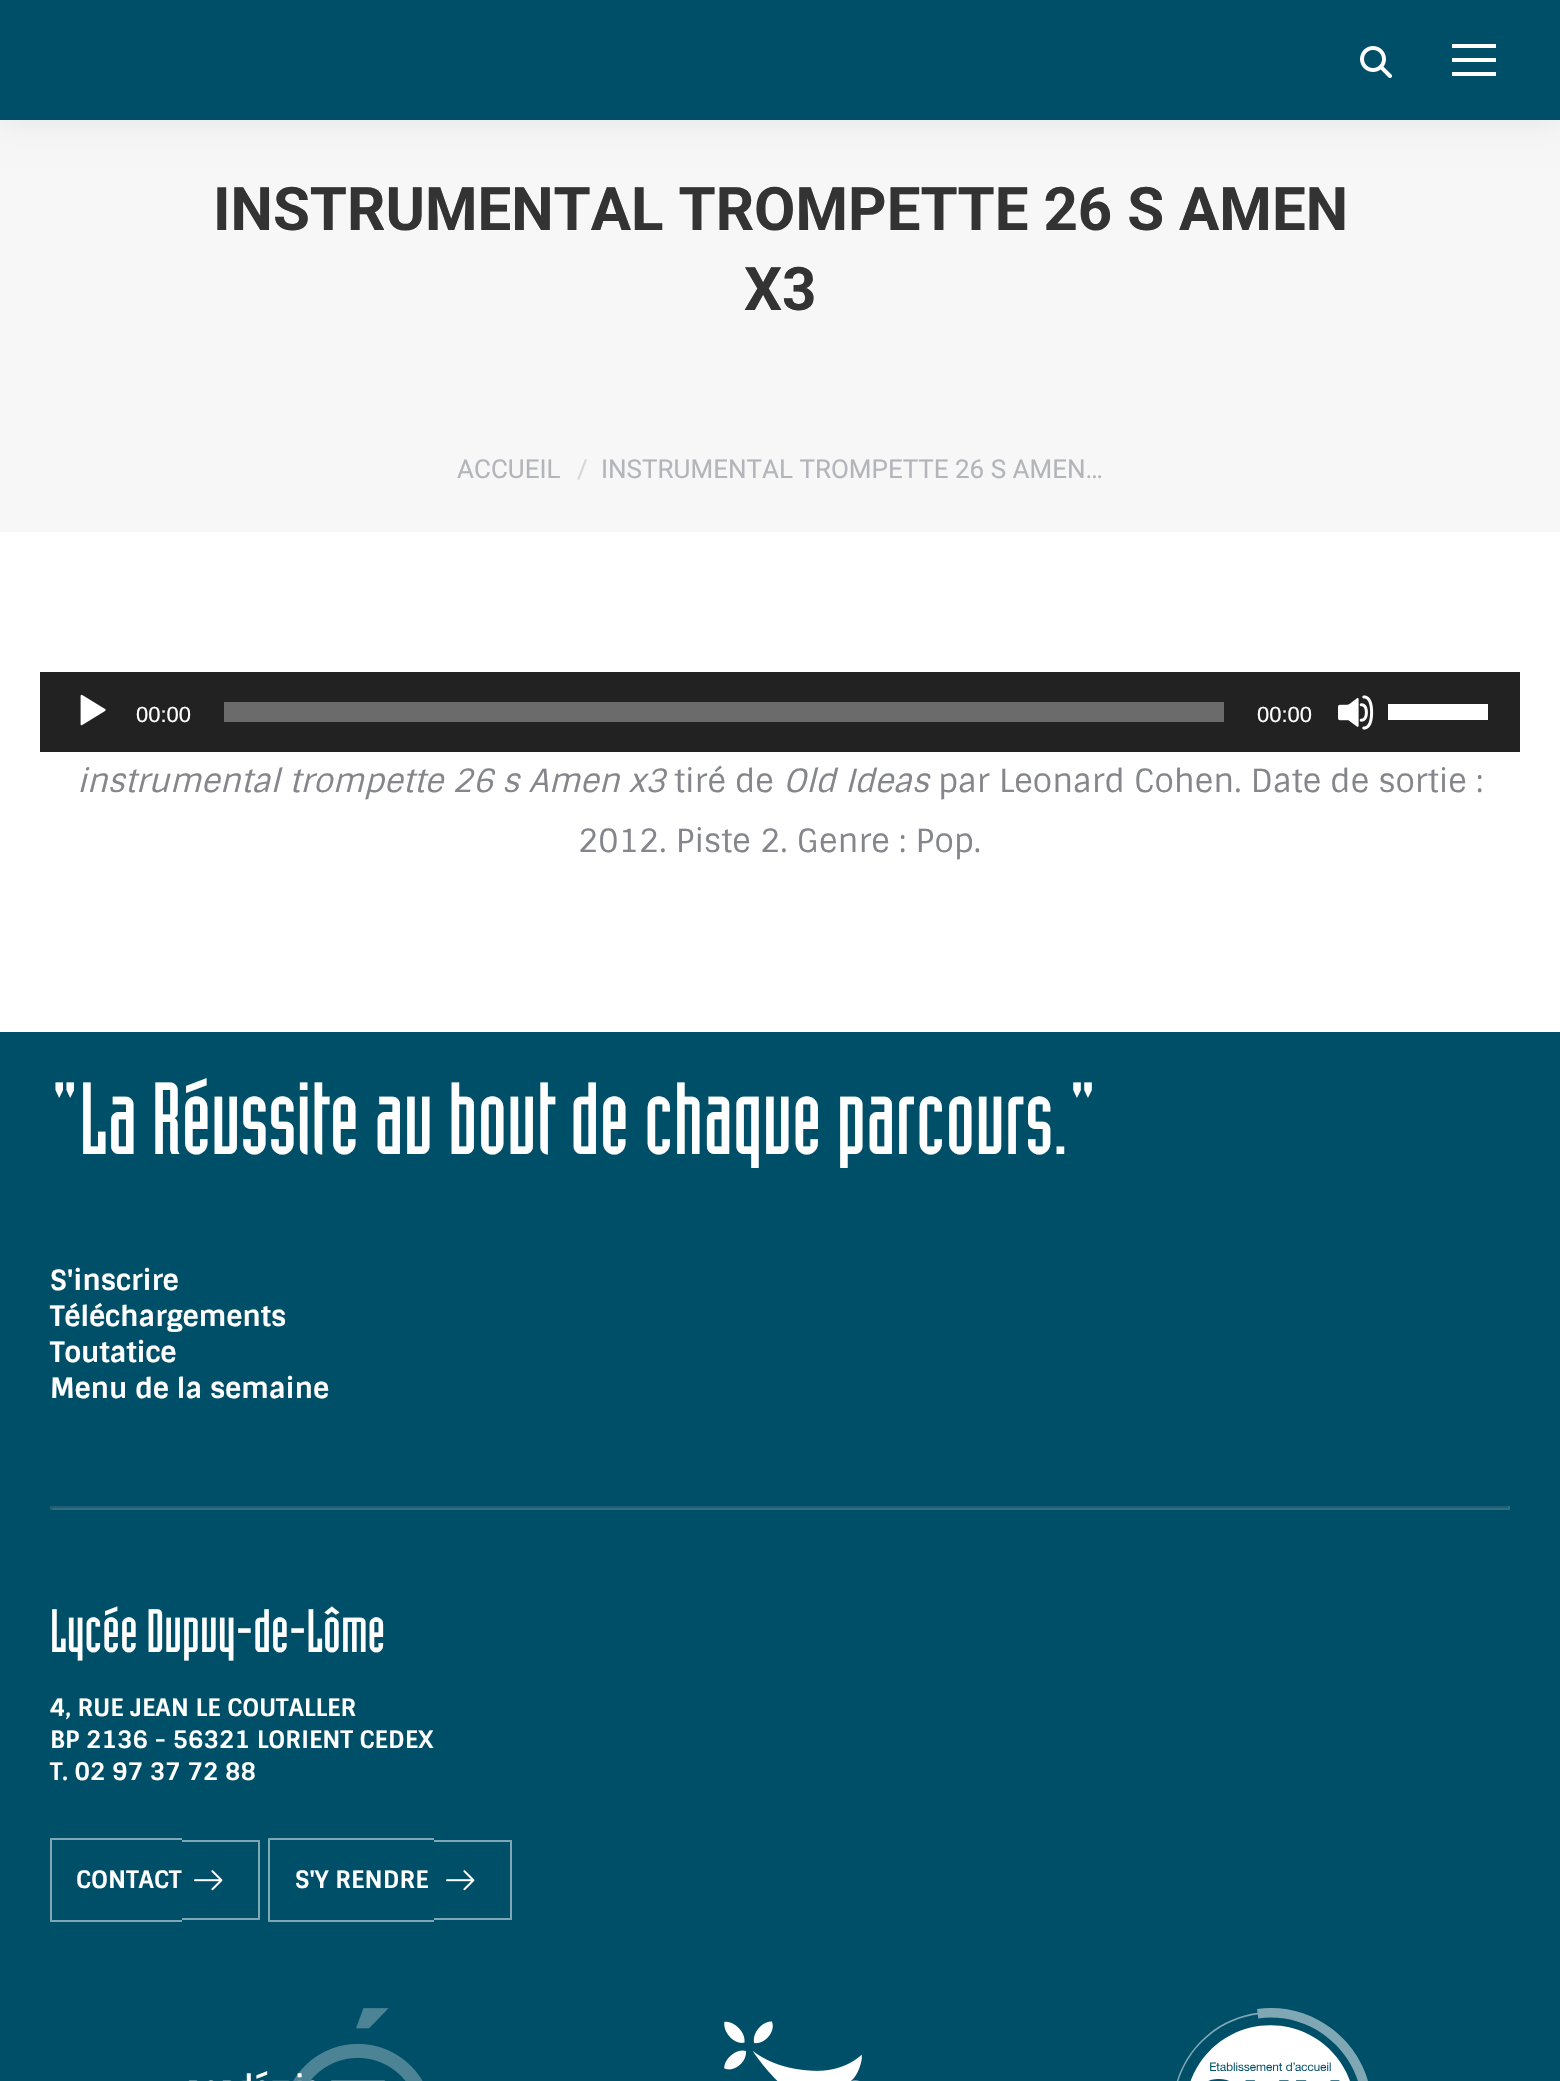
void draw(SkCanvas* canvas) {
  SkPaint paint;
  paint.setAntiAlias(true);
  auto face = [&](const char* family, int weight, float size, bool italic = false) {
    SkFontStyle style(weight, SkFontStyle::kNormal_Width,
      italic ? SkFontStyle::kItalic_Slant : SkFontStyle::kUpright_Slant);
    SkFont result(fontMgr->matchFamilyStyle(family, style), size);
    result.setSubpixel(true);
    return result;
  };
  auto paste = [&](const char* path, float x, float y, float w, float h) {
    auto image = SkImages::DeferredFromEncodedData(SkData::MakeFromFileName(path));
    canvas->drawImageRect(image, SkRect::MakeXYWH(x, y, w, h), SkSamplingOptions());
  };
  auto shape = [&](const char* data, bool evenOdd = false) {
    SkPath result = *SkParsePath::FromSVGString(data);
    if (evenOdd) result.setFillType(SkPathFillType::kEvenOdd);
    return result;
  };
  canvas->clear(0xffffffff);
  paint.setColor(0xfff7f7f7);
  canvas->drawRect(SkRect::MakeXYWH(0, 120, 1560, 412), paint);
  paint.setColor(0x12000000);
  paint.setMaskFilter(SkMaskFilter::MakeBlur(kNormal_SkBlurStyle, 15));
  canvas->drawRect(SkRect::MakeXYWH(-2, -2, 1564, 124), paint);
  paint.setMaskFilter(nullptr);
  paint.setColor(0xff004f68);
  canvas->drawRect(SkRect::MakeXYWH(0, 0, 1560, 120), paint);
  paste("img/1.png", 1360, 46, 32, 32);
  {
    const struct { float x, y, w, h; SkColor color; } items[] = {
      {1452, 44, 44, 4, 0xffffffff},
      {1452, 58, 44, 4, 0xffffffff},
      {1452, 72, 44, 4, 0xffffffff},
      {40, 672, 1480, 80, 0xff222222},
    };
    for (auto [x, y, w, h, color] : items) {
      paint.setColor(color);
      canvas->drawRect(SkRect::MakeXYWH(x, y, w, h), paint);
    }
  }
  paste("img/2.png", 80, 694, 26, 32);
  paint.setColor(0xff6b6b6b);
  canvas->drawRect(SkRect::MakeXYWH(224, 702, 1000, 20), paint);
  paste("img/3.png", 1338, 695, 36, 35);
  {
    const struct { float x, y, w, h; SkColor color; } items[] = {
      {1388, 704, 100, 16, 0xffffffff},
      {0, 1032, 1560, 1049, 0xff004f68},
      {50, 1506, 1460, 2, 0xff205f73},
      {1508, 1506, 2, 4, 0xff306f83},
      {50, 1508, 1460, 2, 0xff306f83},
      {50, 1506, 2, 4, 0xff205f73},
    };
    for (auto [x, y, w, h, color] : items) {
      paint.setColor(color);
      canvas->drawRect(SkRect::MakeXYWH(x, y, w, h), paint);
    }
  }
  paint.setColor(0xff80a7b4);
  canvas->drawPath(shape("M50 1838H182V1840H52Z"), paint);
  canvas->drawPath(shape("M182 1922H50L52 1920H182Z"), paint);
  paint.setColor(0x80ffffff);
  canvas->drawPath(shape("M50 1922V1838L52 1840V1920Z"), paint);
  paint.setColor(0xff80a7b4);
  canvas->drawPath(shape("M182 1840H260L258 1842H182Z"), paint);
  paint.setColor(0x80ffffff);
  canvas->drawPath(shape("M260 1840V1920L258 1918V1842Z"), paint);
  canvas->drawPath(shape("M260 1920H182V1918H258Z"), paint);
  paste("img/4.png", 194, 1870, 29, 21);
  paint.setColor(0xff80a7b4);
  canvas->drawPath(shape("M268 1838H434V1840H270Z"), paint);
  canvas->drawPath(shape("M434 1922H268L270 1920H434Z"), paint);
  paint.setColor(0x80ffffff);
  canvas->drawPath(shape("M268 1922V1838L270 1840V1920Z"), paint);
  paint.setColor(0xff80a7b4);
  canvas->drawPath(shape("M434 1840H512L510 1842H434Z"), paint);
  paint.setColor(0x80ffffff);
  canvas->drawPath(shape("M512 1840V1920L510 1918V1842Z"), paint);
  canvas->drawPath(shape("M512 1920H434V1918H510Z"), paint);
  paste("img/4.png", 446, 1870, 29, 21);
  paste("img/5.png", 189, 2008, 234, 73);
  paste("img/6.png", 724, 2021, 138, 60);
  paste("img/7.png", 1176, 2008, 192, 73);
  auto f0 = face("Roboto", 700, 60);
  paint.setColor(0xff333333);
  canvas->drawString("INSTRUMENTAL TROMPETTE 26 S AMEN", 213, 230, f0, paint);
  canvas->drawString("X3", 744, 310, f0, paint);
  auto f1 = face("Roboto", 400, 26);
  paint.setColor(0xffb4b5bb);
  canvas->drawString("ACCUEIL", 457, 478, f1, paint);
  paint.setColor(0xffd6d6d9);
  canvas->drawString("/", 577, 478, f1, paint);
  paint.setColor(0xffb4b5bb);
  canvas->drawString("INSTRUMENTAL TROMPETTE 26 S AMEN…", 601, 478, f1, paint);
  auto f2 = face("Liberation Sans", 400, 22);
  paint.setColor(0xffffffff);
  canvas->drawString("00:00", 136, 722, f2, paint);
  canvas->drawString("00:00", 1257, 722, f2, paint);
  auto f3 = face("Sintony", 400, 32, true);
  paint.setColor(0xff85868c);
  canvas->drawString("instrumental trompette 26 s Amen x3", 77, 792, f3, paint);
  auto f4 = face("Sintony", 400, 32);
  canvas->drawString("tiré de", 674, 792, f4, paint);
  canvas->drawString("Old Ideas", 783, 792, f3, paint);
  canvas->drawString("par Leonard Cohen. Date de sortie :", 938, 792, f4, paint);
  canvas->drawString("2012. Piste 2. Genre : Pop.", 578, 852, f4, paint);
  auto f5 = face("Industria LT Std", 400, 100);
  paint.setColor(0xffffffff);
  canvas->drawString("\"La Réussite au bout de chaque parcours.\"", 50, 1154, f5, paint);
  auto f6 = face("Sintony", 700, 28);
  {
    const struct { const char* s; float x, y; } items[] = {
      {"S'inscrire", 50, 1290},
      {"Téléchargements", 50, 1326},
      {"Toutatice", 50, 1362},
      {"Menu de la semaine", 50, 1398},
    };
    for (auto [s, x, y] : items) {
      canvas->drawString(s, x, y, f6, paint);
    }
  }
  auto f7 = face("Industria LT Std", 400, 60);
  canvas->drawString("Lycée Dupuy-de-Lôme", 50, 1652, f7, paint);
  auto f8 = face("Sintony", 700, 24);
  {
    const struct { const char* s; float x, y; } items[] = {
      {"4, RUE JEAN LE COUTALLER", 50, 1716},
      {"BP 2136 - 56321 LORIENT CEDEX", 50, 1748},
      {"T. 02 97 37 72 88", 50, 1780},
      {"CONTACT", 76, 1888},
      {"S'Y RENDRE", 295, 1888},
    };
    for (auto [s, x, y] : items) {
      canvas->drawString(s, x, y, f8, paint);
    }
  }
}
